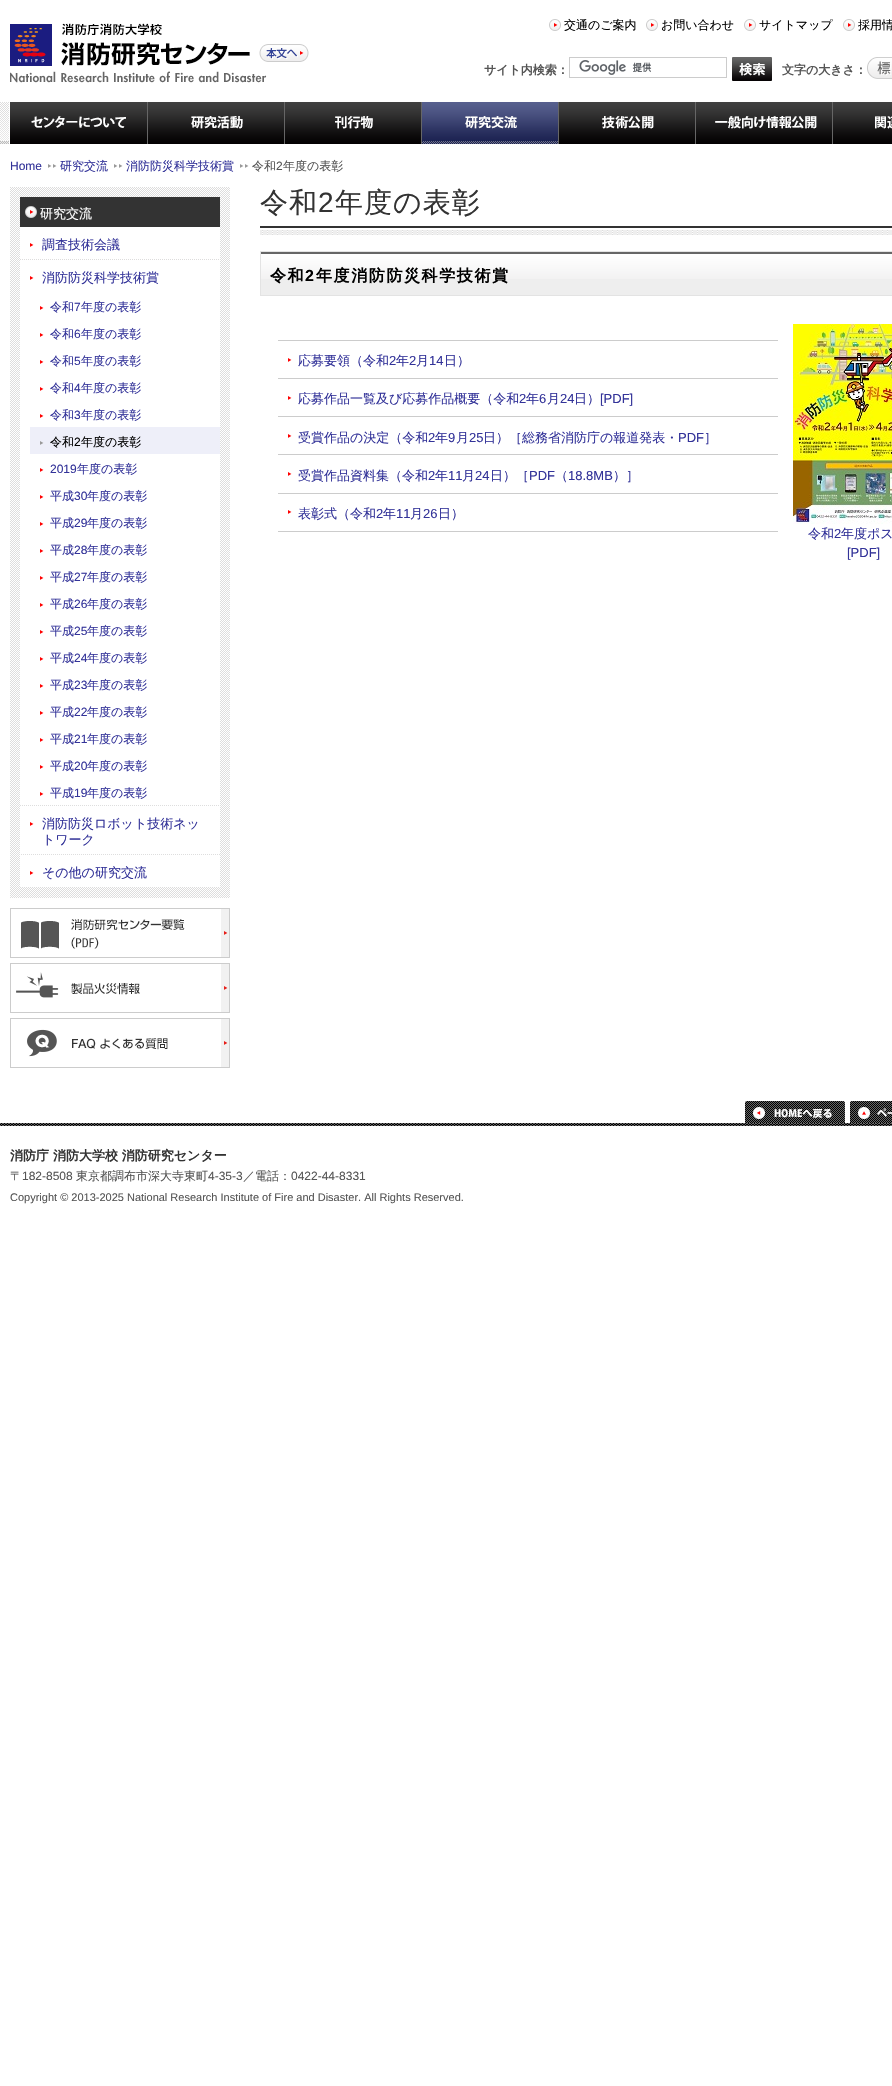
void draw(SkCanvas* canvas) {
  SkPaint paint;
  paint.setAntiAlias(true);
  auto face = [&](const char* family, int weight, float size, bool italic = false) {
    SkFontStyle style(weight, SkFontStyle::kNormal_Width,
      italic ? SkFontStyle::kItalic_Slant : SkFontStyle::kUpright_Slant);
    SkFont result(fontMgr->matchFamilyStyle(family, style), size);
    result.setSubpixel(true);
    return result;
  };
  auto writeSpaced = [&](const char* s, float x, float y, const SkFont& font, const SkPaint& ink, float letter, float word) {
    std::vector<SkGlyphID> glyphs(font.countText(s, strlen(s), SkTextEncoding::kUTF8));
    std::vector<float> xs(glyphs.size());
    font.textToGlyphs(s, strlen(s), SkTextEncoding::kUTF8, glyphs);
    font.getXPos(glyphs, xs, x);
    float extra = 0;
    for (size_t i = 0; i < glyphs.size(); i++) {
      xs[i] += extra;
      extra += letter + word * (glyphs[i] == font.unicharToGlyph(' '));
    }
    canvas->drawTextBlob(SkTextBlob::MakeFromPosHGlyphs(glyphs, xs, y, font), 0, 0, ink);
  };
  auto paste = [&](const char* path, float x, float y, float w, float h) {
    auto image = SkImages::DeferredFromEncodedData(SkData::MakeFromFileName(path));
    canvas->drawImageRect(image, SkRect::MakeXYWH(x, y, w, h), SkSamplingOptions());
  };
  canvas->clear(0xffffffff);
  paste("img/1.png", 10, 23, 257, 60);
  paste("img/2.png", 259, 44, 50, 18);
  paste("img/3.png", 549, 19, 12, 12);
  paste("img/3.png", 646, 19, 12, 12);
  paste("img/3.png", 744, 19, 12, 12);
  paste("img/3.png", 843, 19, 12, 12);
  paste("img/4.png", 579, 60, 73, 15);
  paint.setStroke(true);
  paint.setStrokeWidth(1);
  paint.setColor(0xffcccccc);
  canvas->drawRect(SkRect::MakeXYWH(569.5f, 57.5f, 157, 20), paint);
  paste("img/5.png", 732, 57, 40, 24);
  paste("img/6.png", 867, 57, 25, 22);
  paste("img/7.png", 0, 102, 9, 42);
  paste("img/8.png", 10, 102, 138, 42);
  paste("img/9.png", 148, 102, 137, 42);
  paste("img/10.png", 285, 102, 137, 42);
  paste("img/11.png", 422, 102, 137, 42);
  paste("img/12.png", 559, 102, 137, 42);
  paste("img/13.png", 696, 102, 137, 42);
  paste("img/14.png", 833, 102, 59, 42);
  paste("img/15.png", 48, 164, 9, 4);
  paste("img/15.png", 114, 164, 9, 4);
  paste("img/15.png", 240, 164, 9, 4);
  paste("img/16.png", 10, 187, 220, 711);
  paint.setStroke(false);
  paint.setColor(0xff333333);
  canvas->drawRect(SkRect::MakeXYWH(20, 197, 200, 30), paint);
  paste("img/17.png", 25, 206, 12, 12);
  paint.setColor(0xffffffff);
  canvas->drawRect(SkRect::MakeXYWH(20, 227, 200, 32), paint);
  paste("img/18.png", 30, 243, 4, 4);
  canvas->drawRect(SkRect::MakeXYWH(20, 260, 200, 545), paint);
  paste("img/18.png", 30, 276, 4, 4);
  paste("img/18.png", 40, 306, 4, 4);
  paste("img/18.png", 40, 333, 4, 4);
  paste("img/18.png", 40, 360, 4, 4);
  paste("img/18.png", 40, 387, 4, 4);
  paste("img/18.png", 40, 414, 4, 4);
  paint.setColor(0xffeeeff9);
  canvas->drawRect(SkRect::MakeXYWH(30, 427, 190, 27), paint);
  paste("img/19.png", 40, 441, 4, 4);
  paste("img/18.png", 40, 468, 4, 4);
  paste("img/18.png", 40, 495, 4, 4);
  paste("img/18.png", 40, 522, 4, 4);
  paste("img/18.png", 40, 549, 4, 4);
  paste("img/18.png", 40, 576, 4, 4);
  paste("img/18.png", 40, 603, 4, 4);
  paste("img/18.png", 40, 630, 4, 4);
  paste("img/18.png", 40, 657, 4, 4);
  paste("img/18.png", 40, 684, 4, 4);
  paste("img/18.png", 40, 711, 4, 4);
  paste("img/18.png", 40, 738, 4, 4);
  paste("img/18.png", 40, 765, 4, 4);
  paste("img/18.png", 40, 792, 4, 4);
  paint.setColor(0xffffffff);
  canvas->drawRect(SkRect::MakeXYWH(20, 806, 200, 48), paint);
  paste("img/18.png", 30, 822, 4, 4);
  canvas->drawRect(SkRect::MakeXYWH(20, 855, 200, 32), paint);
  paste("img/18.png", 30, 871, 4, 4);
  paste("img/20.png", 10, 908, 220, 50);
  paste("img/21.png", 10, 963, 220, 50);
  paste("img/22.png", 10, 1018, 220, 50);
  paste("img/23.png", 260, 226, 632, 9);
  paint.setColor(0xffeeeeee);
  canvas->drawRect(SkRect::MakeXYWH(261, 279, 631, 16), paint);
  paste("img/24.png", 261, 252, 631, 27);
  paint.setStroke(true);
  paint.setColor(0xffe3e3e3);
  canvas->drawRect(SkRect::MakeXYWH(260.5f, 251.5f, 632, 44), paint);
  paint.setStroke(false);
  paint.setColor(0xffcccccc);
  canvas->drawRect(SkRect::MakeXYWH(278, 340, 500, 1), paint);
  canvas->drawRect(SkRect::MakeXYWH(278, 378, 500, 1), paint);
  paste("img/18.png", 288, 358, 4, 4);
  canvas->drawRect(SkRect::MakeXYWH(278, 416, 500, 1), paint);
  paste("img/18.png", 288, 396, 4, 4);
  canvas->drawRect(SkRect::MakeXYWH(278, 454, 500, 1), paint);
  paste("img/18.png", 288, 434, 4, 4);
  canvas->drawRect(SkRect::MakeXYWH(278, 493, 500, 1), paint);
  paste("img/18.png", 288, 472, 4, 4);
  canvas->drawRect(SkRect::MakeXYWH(278, 531, 500, 1), paint);
  paste("img/18.png", 288, 510, 4, 4);
  paste("img/25.png", 793, 324, 99, 200);
  paste("img/26.png", 0, 1123, 892, 3);
  paste("img/27.png", 745, 1101, 100, 22);
  paste("img/28.png", 850, 1101, 42, 22);
  auto f0 = face("WenQuanYi Zen Hei", 500, 12);
  paint.setColor(0xff000000);
  {
    const struct { const char* s; float x, y; } items[] = {
      {"交通のご案内", 564, 29},
      {"お問い合わせ", 661, 29},
      {"サイトマップ", 759, 29},
      {"採用情", 858, 29},
    };
    for (auto [s, x, y] : items) {
      canvas->drawString(s, x, y, f0, paint);
    }
  }
  auto f1 = face("WenQuanYi Zen Hei", 700, 12);
  paint.setColor(0xff555555);
  canvas->drawString("サイト内検索：", 484, 74, f1, paint);
  canvas->drawString("文字の大きさ：", 782, 74, f1, paint);
  auto f2 = face("Liberation Sans", 400, 12);
  paint.setColor(0xff333399);
  canvas->drawString("Home", 10, 170, f2, paint);
  canvas->drawString("研究交流", 60, 170, f0, paint);
  canvas->drawString("消防防災科学技術賞", 126, 170, f0, paint);
  paint.setColor(0xff555555);
  canvas->drawString("令和", 252, 170, f0, paint);
  canvas->drawString("2", 276, 170, f2, paint);
  canvas->drawString("年度の表彰", 283, 170, f0, paint);
  auto f3 = face("WenQuanYi Zen Hei", 500, 13);
  paint.setColor(0xffffffff);
  canvas->drawString("研究交流", 40, 218, f3, paint);
  paint.setColor(0xff333399);
  canvas->drawString("調査技術会議", 42, 249, f3, paint);
  canvas->drawString("消防防災科学技術賞", 42, 282, f3, paint);
  canvas->drawString("令和", 50, 311, f0, paint);
  canvas->drawString("7", 74, 311, f2, paint);
  canvas->drawString("年度の表彰", 81, 311, f0, paint);
  canvas->drawString("令和", 50, 338, f0, paint);
  canvas->drawString("6", 74, 338, f2, paint);
  canvas->drawString("年度の表彰", 81, 338, f0, paint);
  canvas->drawString("令和", 50, 365, f0, paint);
  canvas->drawString("5", 74, 365, f2, paint);
  canvas->drawString("年度の表彰", 81, 365, f0, paint);
  canvas->drawString("令和", 50, 392, f0, paint);
  canvas->drawString("4", 74, 392, f2, paint);
  canvas->drawString("年度の表彰", 81, 392, f0, paint);
  canvas->drawString("令和", 50, 419, f0, paint);
  canvas->drawString("3", 74, 419, f2, paint);
  canvas->drawString("年度の表彰", 81, 419, f0, paint);
  paint.setColor(0xff000000);
  canvas->drawString("令和", 50, 446, f0, paint);
  canvas->drawString("2", 74, 446, f2, paint);
  canvas->drawString("年度の表彰", 81, 446, f0, paint);
  paint.setColor(0xff333399);
  canvas->drawString("2019", 50, 473, f2, paint);
  canvas->drawString("年度の表彰", 77, 473, f0, paint);
  canvas->drawString("平成", 50, 500, f0, paint);
  canvas->drawString("30", 74, 500, f2, paint);
  canvas->drawString("年度の表彰", 87, 500, f0, paint);
  canvas->drawString("平成", 50, 527, f0, paint);
  canvas->drawString("29", 74, 527, f2, paint);
  canvas->drawString("年度の表彰", 87, 527, f0, paint);
  canvas->drawString("平成", 50, 554, f0, paint);
  canvas->drawString("28", 74, 554, f2, paint);
  canvas->drawString("年度の表彰", 87, 554, f0, paint);
  canvas->drawString("平成", 50, 581, f0, paint);
  canvas->drawString("27", 74, 581, f2, paint);
  canvas->drawString("年度の表彰", 87, 581, f0, paint);
  canvas->drawString("平成", 50, 608, f0, paint);
  canvas->drawString("26", 74, 608, f2, paint);
  canvas->drawString("年度の表彰", 87, 608, f0, paint);
  canvas->drawString("平成", 50, 635, f0, paint);
  canvas->drawString("25", 74, 635, f2, paint);
  canvas->drawString("年度の表彰", 87, 635, f0, paint);
  canvas->drawString("平成", 50, 662, f0, paint);
  canvas->drawString("24", 74, 662, f2, paint);
  canvas->drawString("年度の表彰", 87, 662, f0, paint);
  canvas->drawString("平成", 50, 689, f0, paint);
  canvas->drawString("23", 74, 689, f2, paint);
  canvas->drawString("年度の表彰", 87, 689, f0, paint);
  canvas->drawString("平成", 50, 716, f0, paint);
  canvas->drawString("22", 74, 716, f2, paint);
  canvas->drawString("年度の表彰", 87, 716, f0, paint);
  canvas->drawString("平成", 50, 743, f0, paint);
  canvas->drawString("21", 74, 743, f2, paint);
  canvas->drawString("年度の表彰", 87, 743, f0, paint);
  canvas->drawString("平成", 50, 770, f0, paint);
  canvas->drawString("20", 74, 770, f2, paint);
  canvas->drawString("年度の表彰", 87, 770, f0, paint);
  canvas->drawString("平成", 50, 797, f0, paint);
  canvas->drawString("19", 74, 797, f2, paint);
  canvas->drawString("年度の表彰", 87, 797, f0, paint);
  {
    const struct { const char* s; float x, y; } items[] = {
      {"消防防災ロボット技術ネッ", 42, 828},
      {"トワーク", 42, 844},
      {"その他の研究交流", 42, 877},
    };
    for (auto [s, x, y] : items) {
      canvas->drawString(s, x, y, f3, paint);
    }
  }
  auto f4 = face("WenQuanYi Zen Hei", 500, 28);
  paint.setColor(0xff333333);
  writeSpaced("令和", 260, 212, f4, paint, 1, 0);
  auto f5 = face("Liberation Sans", 400, 28);
  writeSpaced("2", 318, 212, f5, paint, 1, 0);
  writeSpaced("年度の表彰", 335, 212, f4, paint, 1, 0);
  auto f6 = face("WenQuanYi Zen Hei", 700, 16);
  paint.setColor(0xff000000);
  writeSpaced("令和", 270, 281, f6, paint, 1.6f, 0);
  auto f7 = face("Liberation Sans", 700, 16);
  writeSpaced("2", 305, 281, f7, paint, 1.6f, 0);
  writeSpaced("年度消防防災科学技術賞", 316, 281, f6, paint, 1.6f, 0);
  paint.setColor(0xff333399);
  canvas->drawString("応募要領（令和", 298, 365, f3, paint);
  auto f8 = face("Liberation Sans", 400, 13);
  canvas->drawString("2", 389, 365, f8, paint);
  canvas->drawString("年", 396, 365, f3, paint);
  canvas->drawString("2", 409, 365, f8, paint);
  canvas->drawString("月", 416, 365, f3, paint);
  canvas->drawString("14", 429, 365, f8, paint);
  canvas->drawString("日）", 444, 365, f3, paint);
  canvas->drawString("応募作品一覧及び応募作品概要（令和", 298, 403, f3, paint);
  canvas->drawString("2", 519, 403, f8, paint);
  canvas->drawString("年", 526, 403, f3, paint);
  canvas->drawString("6", 539, 403, f8, paint);
  canvas->drawString("月", 547, 403, f3, paint);
  canvas->drawString("24", 560, 403, f8, paint);
  canvas->drawString("日）", 574, 403, f3, paint);
  canvas->drawString("[PDF]", 600, 403, f8, paint);
  canvas->drawString("受賞作品の決定（令和", 298, 442, f3, paint);
  canvas->drawString("2", 428, 442, f8, paint);
  canvas->drawString("年", 435, 442, f3, paint);
  canvas->drawString("9", 448, 442, f8, paint);
  canvas->drawString("月", 456, 442, f3, paint);
  canvas->drawString("25", 469, 442, f8, paint);
  canvas->drawString("日）［総務省消防庁の報道発表・", 483, 442, f3, paint);
  canvas->drawString("PDF", 678, 442, f8, paint);
  canvas->drawString("］", 704, 442, f3, paint);
  canvas->drawString("受賞作品資料集（令和", 298, 480, f3, paint);
  canvas->drawString("2", 428, 480, f8, paint);
  canvas->drawString("年", 435, 480, f3, paint);
  canvas->drawString("11", 448, 480, f8, paint);
  canvas->drawString("月", 462, 480, f3, paint);
  canvas->drawString("24", 475, 480, f8, paint);
  canvas->drawString("日）［", 490, 480, f3, paint);
  canvas->drawString("PDF", 529, 480, f8, paint);
  canvas->drawString("（", 555, 480, f3, paint);
  canvas->drawString("18.8MB", 568, 480, f8, paint);
  canvas->drawString("）］", 613, 480, f3, paint);
  canvas->drawString("表彰式（令和", 298, 518, f3, paint);
  canvas->drawString("2", 376, 518, f8, paint);
  canvas->drawString("年", 383, 518, f3, paint);
  canvas->drawString("11", 396, 518, f8, paint);
  canvas->drawString("月", 410, 518, f3, paint);
  canvas->drawString("26", 423, 518, f8, paint);
  canvas->drawString("日）", 438, 518, f3, paint);
  canvas->drawString("令和", 808, 538, f3, paint);
  canvas->drawString("2", 834, 538, f8, paint);
  canvas->drawString("年度ポス", 841, 538, f3, paint);
  canvas->drawString("[PDF]", 847, 557, f8, paint);
  auto f9 = face("WenQuanYi Zen Hei", 700, 13);
  paint.setColor(0xff333333);
  canvas->drawString("消防庁 消防大学校 消防研究センター", 10, 1160, f9, paint);
  paint.setColor(0xff555555);
  canvas->drawString("〒", 10, 1180, f0, paint);
  canvas->drawString("182-8508", 22, 1180, f2, paint);
  canvas->drawString("東京都調布市深大寺東町", 76, 1180, f0, paint);
  canvas->drawString("4-35-3", 208, 1180, f2, paint);
  canvas->drawString("／電話：", 243, 1180, f0, paint);
  canvas->drawString("0422-44-8331", 291, 1180, f2, paint);
  auto f10 = face("Liberation Sans", 400, 11);
  canvas->drawString("Copyright © 2013-2025 National Research Institute of Fire and Disaster. All Rights Reserved.", 10, 1201, f10, paint);
}
